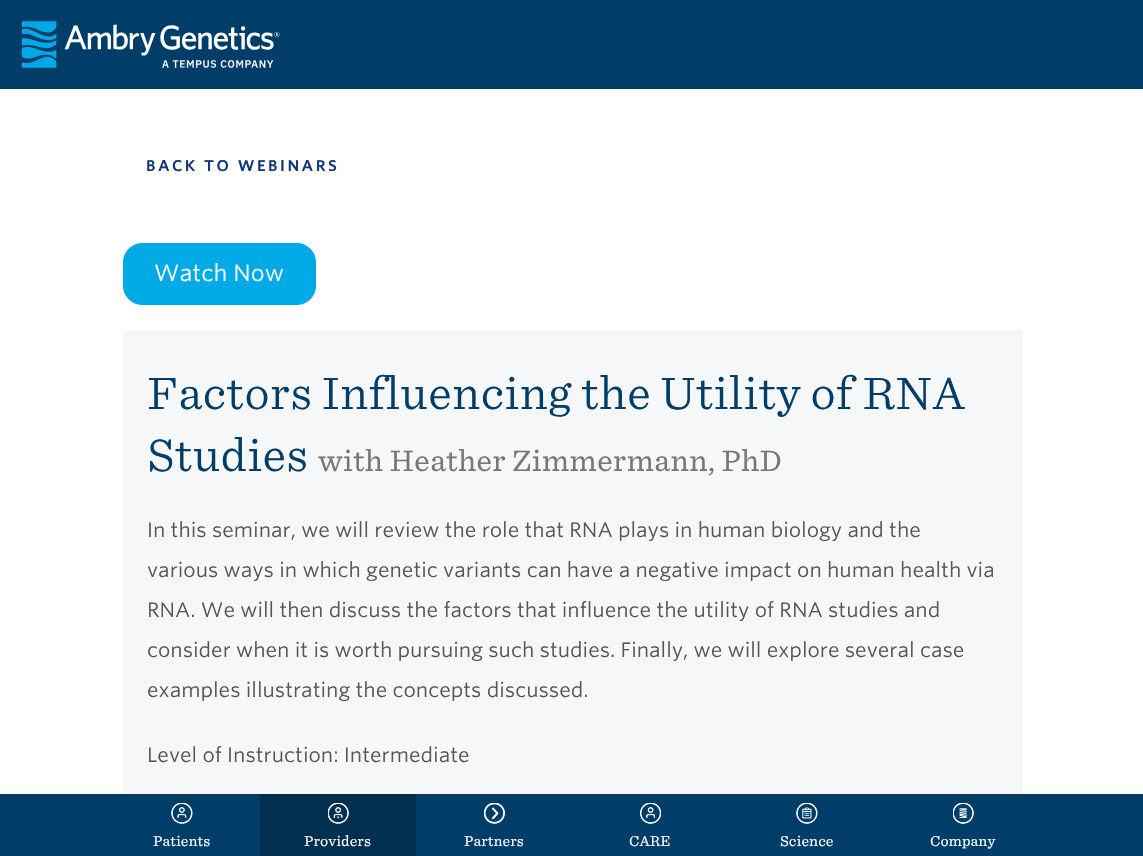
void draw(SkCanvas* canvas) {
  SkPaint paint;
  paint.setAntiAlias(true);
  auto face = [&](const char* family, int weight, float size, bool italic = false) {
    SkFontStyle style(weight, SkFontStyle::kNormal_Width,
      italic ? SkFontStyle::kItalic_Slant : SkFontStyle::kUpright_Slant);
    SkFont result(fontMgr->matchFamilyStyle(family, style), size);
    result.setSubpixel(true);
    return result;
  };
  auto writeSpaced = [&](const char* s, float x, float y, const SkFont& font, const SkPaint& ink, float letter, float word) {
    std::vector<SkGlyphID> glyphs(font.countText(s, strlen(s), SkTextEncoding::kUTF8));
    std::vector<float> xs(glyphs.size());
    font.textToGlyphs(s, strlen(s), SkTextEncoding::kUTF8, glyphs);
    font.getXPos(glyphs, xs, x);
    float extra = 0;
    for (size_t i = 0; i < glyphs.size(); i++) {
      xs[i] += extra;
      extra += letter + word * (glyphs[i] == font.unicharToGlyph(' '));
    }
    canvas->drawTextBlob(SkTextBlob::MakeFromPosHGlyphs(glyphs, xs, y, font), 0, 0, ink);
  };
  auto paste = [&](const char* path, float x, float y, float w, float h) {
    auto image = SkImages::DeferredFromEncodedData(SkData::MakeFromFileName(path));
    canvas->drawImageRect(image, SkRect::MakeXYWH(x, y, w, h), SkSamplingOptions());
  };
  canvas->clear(0xffffffff);
  paint.setColor(0xff003e69);
  canvas->drawRect(SkRect::MakeXYWH(0, 0, 1143, 89), paint);
  paste("img/1.png", 21, 21, 259, 47);
  paint.setColor(0xff00aae7);
  canvas->drawRoundRect(SkRect::MakeXYWH(123.5f, 243.5f, 192, 61), 18.5f, 18.5f, paint);
  paint.setStroke(true);
  paint.setStrokeWidth(1);
  canvas->drawRoundRect(SkRect::MakeXYWH(123.5f, 243.5f, 192, 61), 18.5f, 18.5f, paint);
  paint.setStroke(false);
  paint.setColor(0xfff6f7f8);
  canvas->drawRect(SkRect::MakeXYWH(123, 330, 900, 464), paint);
  paint.setColor(0xff003e69);
  canvas->drawRect(SkRect::MakeXYWH(0, 794, 1143, 62), paint);
  paste("img/2.png", 171, 803, 22, 21);
  paint.setColor(0xff002f50);
  canvas->drawRect(SkRect::MakeXYWH(260, 794, 156, 62), paint);
  paste("img/3.png", 328, 803, 21, 21);
  paste("img/4.png", 484, 803, 21, 21);
  paste("img/5.png", 640, 803, 21, 21);
  paste("img/6.png", 796, 803, 22, 21);
  paste("img/7.png", 953, 803, 21, 21);
  auto f0 = face("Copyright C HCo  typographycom", 400, 15);
  paint.setColor(0xff0e3877);
  writeSpaced("BACK TO WEBINARS", 146, 171, f0, paint, 2.5f, 0);
  auto f1 = face("Copyright C HCo  typographycom", 300, 22.5f);
  paint.setColor(0xffffffff);
  canvas->drawString("Watch Now", 154, 281, f1, paint);
  auto f2 = face("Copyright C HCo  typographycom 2", 300, 43.75f);
  paint.setColor(0xff003e69);
  canvas->drawString("Factors Influencing the Utility of RNA", 147, 409, f2, paint);
  canvas->drawString("Studies", 147, 471, f2, paint);
  auto f3 = face("Copyright C HCo  typographycom 2", 400, 28.5f);
  paint.setColor(0xff777777);
  canvas->drawString("with Heather Zimmermann, PhD", 318, 471, f3, paint);
  auto f4 = face("Copyright C HCo  typographycom", 300, 20);
  paint.setColor(0xff555555);
  {
    const struct { const char* s; float x, y; } items[] = {
      {"In this seminar, we will review the role that RNA plays in human biology and the", 147, 537},
      {"various ways in which genetic variants can have a negative impact on human health via", 147, 577},
      {"RNA. We will then discuss the factors that influence the utility of RNA studies and", 147, 617},
      {"consider when it is worth pursuing such studies. Finally, we will explore several case", 147, 657},
      {"examples illustrating the concepts discussed.", 147, 697},
      {"Level of Instruction: Intermediate", 147, 762},
    };
    for (auto [s, x, y] : items) {
      canvas->drawString(s, x, y, f4, paint);
    }
  }
  auto f5 = face("Copyright C HCo  typographycom 2", 400, 13.75f);
  paint.setColor(0xffffffff);
  {
    const struct { const char* s; float x, y; } items[] = {
      {"Patients", 153, 846},
      {"Providers", 304, 846},
      {"Partners", 464, 846},
      {"CARE", 629, 846},
      {"Science", 780, 846},
      {"Company", 930, 846},
    };
    for (auto [s, x, y] : items) {
      canvas->drawString(s, x, y, f5, paint);
    }
  }
}
